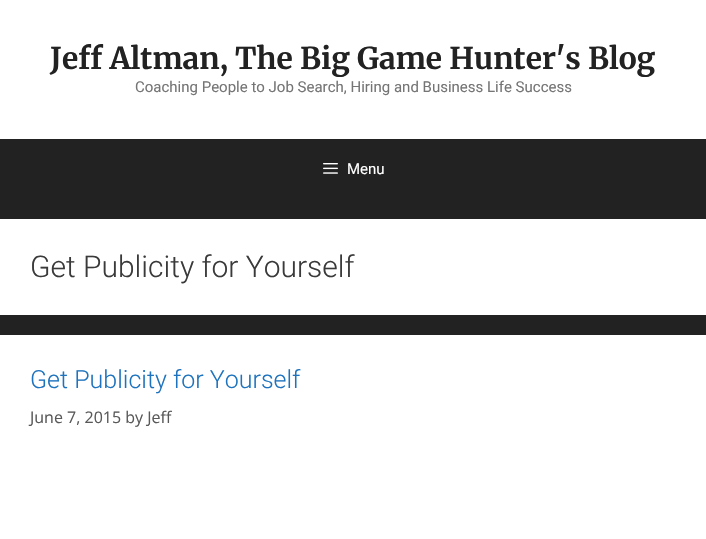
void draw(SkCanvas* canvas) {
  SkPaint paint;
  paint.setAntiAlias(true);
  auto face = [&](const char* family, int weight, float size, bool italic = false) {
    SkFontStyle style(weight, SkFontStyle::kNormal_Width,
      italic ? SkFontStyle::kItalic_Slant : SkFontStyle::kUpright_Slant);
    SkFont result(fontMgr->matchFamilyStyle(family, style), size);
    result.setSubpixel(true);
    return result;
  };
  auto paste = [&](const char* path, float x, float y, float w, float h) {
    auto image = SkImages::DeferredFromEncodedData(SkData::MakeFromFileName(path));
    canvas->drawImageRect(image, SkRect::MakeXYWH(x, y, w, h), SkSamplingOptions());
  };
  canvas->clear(0xff222222);
  paint.setColor(0xffffffff);
  canvas->drawRect(SkRect::MakeXYWH(0, 0, 706, 139), paint);
  paste("img/1.png", 323, 163, 15, 11);
  canvas->drawRect(SkRect::MakeXYWH(0, 219, 706, 96), paint);
  canvas->drawRect(SkRect::MakeXYWH(0, 335, 706, 204), paint);
  auto f0 = face("Merriweather", 700, 30);
  paint.setColor(0xff222222);
  canvas->drawString("Jeff Altman, The Big Game Hunter's Blog", 50, 69, f0, paint);
  auto f1 = face("Roboto", 400, 15);
  paint.setColor(0xff757575);
  canvas->drawString("Coaching People to Job Search, Hiring and Business Life Success", 135, 92, f1, paint);
  paint.setColor(0xffffffff);
  canvas->drawString("Menu", 347, 174, f1, paint);
  auto f2 = face("Roboto", 300, 30);
  paint.setColor(0xff3a3a3a);
  canvas->drawString("Get Publicity for Yourself", 30, 277, f2, paint);
  auto f3 = face("Roboto", 300, 25);
  paint.setColor(0xff1e73be);
  canvas->drawString("Get Publicity for Yourself", 30, 388, f3, paint);
  auto f4 = face("Open Sans", 400, 16);
  paint.setColor(0xff595959);
  canvas->drawString("June 7, 2015 by Jeff", 30, 423, f4, paint);
}
